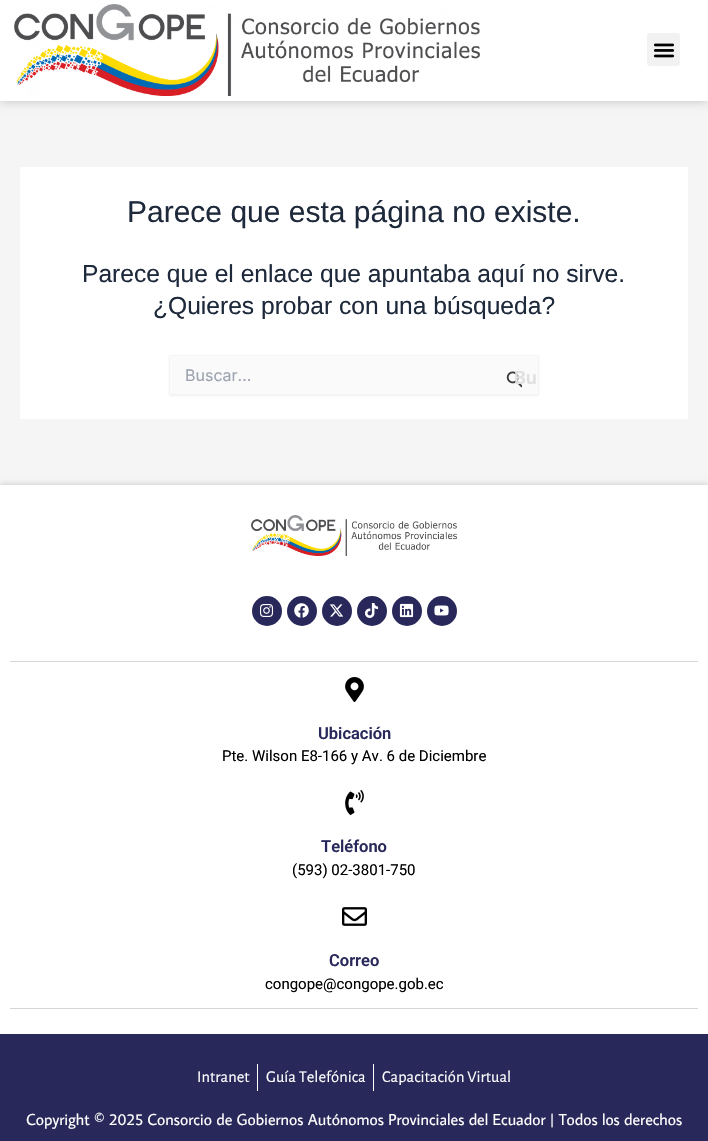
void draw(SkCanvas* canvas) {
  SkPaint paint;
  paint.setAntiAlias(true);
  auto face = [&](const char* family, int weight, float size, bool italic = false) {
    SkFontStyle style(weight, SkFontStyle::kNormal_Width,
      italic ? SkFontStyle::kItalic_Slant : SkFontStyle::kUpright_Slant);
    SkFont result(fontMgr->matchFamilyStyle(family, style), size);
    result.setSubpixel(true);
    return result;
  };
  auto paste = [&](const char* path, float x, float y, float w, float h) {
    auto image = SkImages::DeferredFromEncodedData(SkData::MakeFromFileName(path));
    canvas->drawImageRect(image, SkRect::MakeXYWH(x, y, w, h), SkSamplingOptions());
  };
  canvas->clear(0xfff5f5f5);
  paint.setColor(0x38000000);
  paint.setMaskFilter(SkMaskFilter::MakeBlur(kNormal_SkBlurStyle, 5));
  canvas->drawRect(SkRect::MakeXYWH(0, 0, 708, 101), paint);
  paint.setMaskFilter(nullptr);
  paint.setColor(0xffffffff);
  canvas->drawRect(SkRect::MakeXYWH(0, 0, 708, 101), paint);
  paste("img/1.png", 14, 4, 466, 92);
  paint.setColor(0xfff2f2f2);
  canvas->drawRoundRect(SkRect::MakeXYWH(647, 33, 33, 33), 3, 3, paint);
  paste("img/2.png", 653, 43, 22, 15);
  paint.setColor(0xffffffff);
  canvas->drawRect(SkRect::MakeXYWH(20, 167, 668, 252), paint);
  paint.setColor(0x0d000000);
  paint.setMaskFilter(SkMaskFilter::MakeBlur(kNormal_SkBlurStyle, 1));
  canvas->drawRoundRect(SkRect::MakeXYWH(169, 356, 370, 40), 2, 2, paint);
  paint.setMaskFilter(nullptr);
  paint.setColor(0xfffafafa);
  canvas->drawRoundRect(SkRect::MakeXYWH(169.5f, 355.5f, 369, 39), 1.5f, 1.5f, paint);
  paint.setStroke(true);
  paint.setStrokeWidth(1);
  paint.setColor(0xfff2f5f7);
  canvas->drawRoundRect(SkRect::MakeXYWH(169.5f, 355.5f, 369, 39), 1.5f, 1.5f, paint);
  paste("img/3.png", 506, 371, 16, 17);
  paint.setStroke(false);
  paint.setColor(0x36000000);
  paint.setMaskFilter(SkMaskFilter::MakeBlur(kNormal_SkBlurStyle, 3));
  canvas->drawRect(SkRect::MakeXYWH(0, 485, 708, 549), paint);
  paint.setMaskFilter(nullptr);
  paint.setColor(0xffffffff);
  canvas->drawRect(SkRect::MakeXYWH(0, 485, 708, 549), paint);
  paste("img/4.png", 251, 515, 206, 41);
  paint.setColor(0xff28285a);
  canvas->drawCircle(267, 611, 15, paint);
  paste("img/5.png", 260, 604, 14, 13);
  canvas->drawCircle(302, 611, 15, paint);
  paste("img/6.png", 294, 603, 15, 15);
  canvas->drawCircle(337, 611, 15, paint);
  paste("img/7.png", 329, 604, 15, 13);
  canvas->drawCircle(372, 611, 15, paint);
  paste("img/8.png", 365, 603, 14, 15);
  canvas->drawCircle(407, 611, 15, paint);
  paste("img/9.png", 399, 603, 15, 15);
  canvas->drawCircle(442, 611, 15, paint);
  paste("img/10.png", 434, 605, 15, 11);
  paint.setColor(0xffd6d6d6);
  canvas->drawRect(SkRect::MakeXYWH(10, 661, 688, 1), paint);
  paste("img/11.png", 345, 677, 19, 25);
  paste("img/12.png", 345, 790, 19, 25);
  paste("img/13.png", 342, 907, 25, 19);
  {
    const struct { float x, y, w, h; SkColor color; } items[] = {
      {10, 1008, 688, 1, 0xffd6d6d6},
      {0, 1034, 708, 107, 0xff28285a},
      {257, 1064, 1, 27, 0xffffffff},
      {373, 1064, 1, 27, 0xffffffff},
    };
    for (auto [x, y, w, h, color] : items) {
      paint.setColor(color);
      canvas->drawRect(SkRect::MakeXYWH(x, y, w, h), paint);
    }
  }
  auto f0 = face("Liberation Sans", 400, 30);
  paint.setColor(0xff1e293b);
  canvas->drawString("Parece que esta página no existe.", 127, 222, f0, paint);
  auto f1 = face("Liberation Sans", 400, 24.6f);
  canvas->drawString("Parece que el enlace que apuntaba aquí no sirve.", 82, 282, f1, paint);
  canvas->drawString("¿Quieres probar con una búsqueda?", 153, 314, f1, paint);
  auto f2 = face("Inter", 400, 16);
  paint.setColor(0xff9ca3af);
  canvas->drawString("Buscar...", 185, 381, f2, paint);
  auto f3 = face("Inter", 600, 18);
  paint.setColor(0xffe0e0e0);
  canvas->drawString("Bu", 514, 384, f3, paint);
  auto f4 = face("Roboto", 600, 16.5f);
  paint.setColor(0xff28285a);
  canvas->drawString("Ubicación", 318, 739, f4, paint);
  auto f5 = face("Roboto", 400, 15);
  paint.setColor(0xff000000);
  canvas->drawString("Pte. Wilson E8-166 y Av. 6 de Diciembre", 222, 761, f5, paint);
  paint.setColor(0xff28285a);
  canvas->drawString("Teléfono", 321, 852, f4, paint);
  paint.setColor(0xff000000);
  canvas->drawString("(593) 02-3801-750", 292, 875, f5, paint);
  paint.setColor(0xff28285a);
  canvas->drawString("Correo", 329, 966, f4, paint);
  paint.setColor(0xff000000);
  canvas->drawString("congope@congope.gob.ec", 265, 989, f5, paint);
  auto f6 = face("Alegreya Sans", 400, 16.5f);
  paint.setColor(0xffffffff);
  {
    const struct { const char* s; float x, y; } items[] = {
      {"Intranet", 197, 1082},
      {"Guía Telefónica", 266, 1082},
      {"Capacitación Virtual", 382, 1082},
    };
    for (auto [s, x, y] : items) {
      canvas->drawString(s, x, y, f6, paint);
    }
  }
  auto f7 = face("Average Sans", 400, 16);
  canvas->drawString("Copyright © 2025 Consorcio de Gobiernos Autónomos Provinciales del Ecuador | Todos los derechos", 26, 1125, f7, paint);
}
